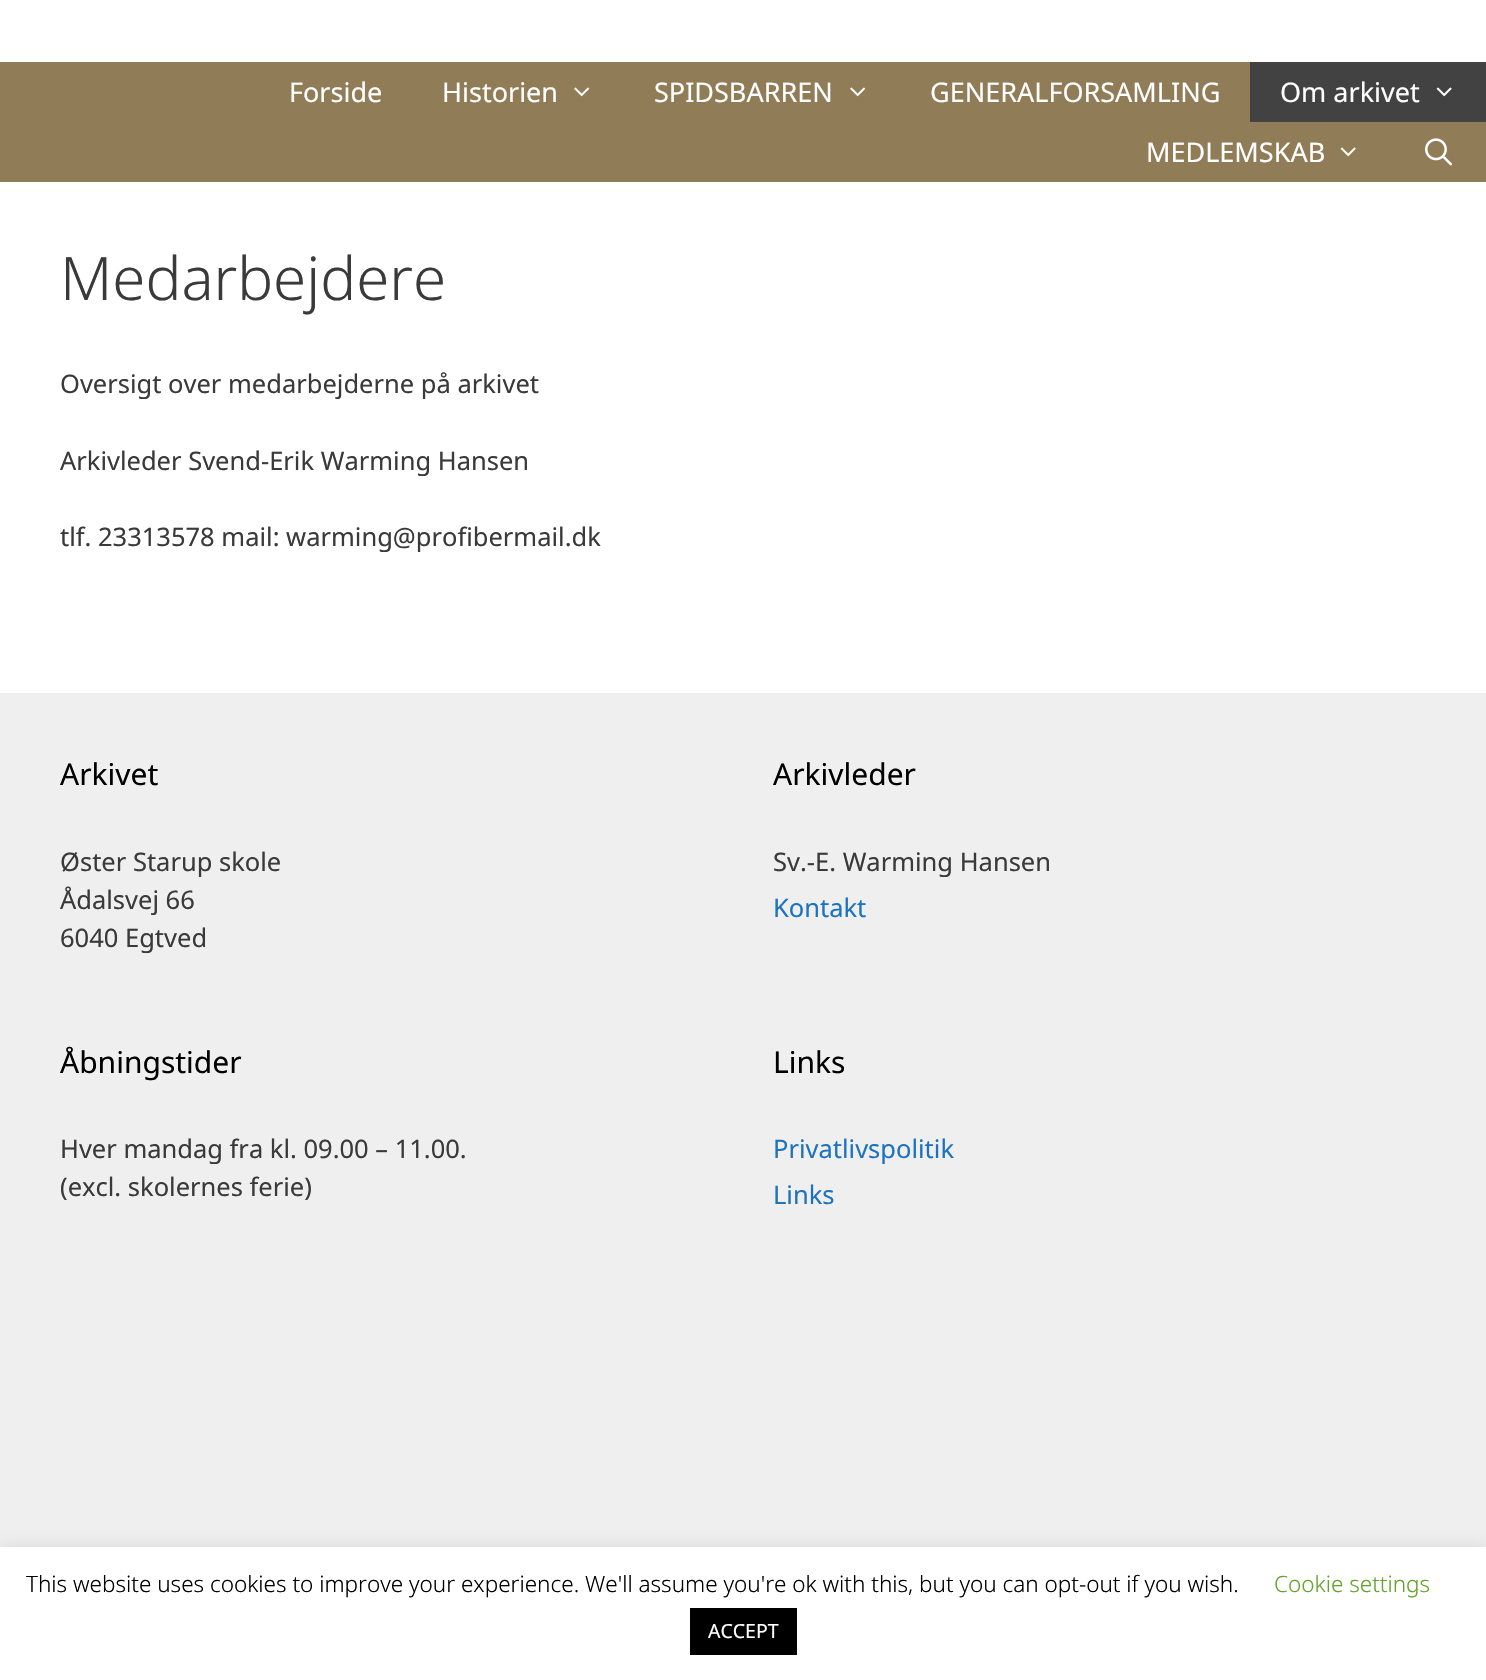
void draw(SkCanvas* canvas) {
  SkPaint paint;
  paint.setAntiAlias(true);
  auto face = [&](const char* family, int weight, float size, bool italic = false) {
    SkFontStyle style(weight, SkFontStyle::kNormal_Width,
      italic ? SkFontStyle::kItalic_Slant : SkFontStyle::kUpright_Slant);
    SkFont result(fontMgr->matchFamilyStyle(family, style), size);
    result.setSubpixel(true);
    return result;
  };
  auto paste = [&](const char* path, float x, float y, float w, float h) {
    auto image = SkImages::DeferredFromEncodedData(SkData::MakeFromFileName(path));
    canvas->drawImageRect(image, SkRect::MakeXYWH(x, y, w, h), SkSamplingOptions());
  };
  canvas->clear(0xffffffff);
  paint.setColor(0xff907c56);
  canvas->drawRect(SkRect::MakeXYWH(0, 62, 1486, 120), paint);
  paste("img/1.png", 574, 87, 16, 10);
  paste("img/1.png", 850, 87, 16, 10);
  paint.setColor(0xff424242);
  canvas->drawRect(SkRect::MakeXYWH(1250, 62, 236, 60), paint);
  paste("img/2.png", 1436, 87, 16, 10);
  paste("img/3.png", 1340, 147, 16, 10);
  paste("img/4.png", 1425, 138, 27, 28);
  paint.setColor(0xffefefef);
  canvas->drawRect(SkRect::MakeXYWH(0, 693, 1486, 854), paint);
  paint.setColor(0x4dacabab);
  paint.setMaskFilter(SkMaskFilter::MakeBlur(kNormal_SkBlurStyle, 7.5f));
  canvas->drawRect(SkRect::MakeXYWH(0, 1545, 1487, 134), paint);
  paint.setMaskFilter(nullptr);
  paint.setColor(0xffffffff);
  canvas->drawRect(SkRect::MakeXYWH(0, 1547, 1486, 133), paint);
  paint.setColor(0xff000000);
  canvas->drawRect(SkRect::MakeXYWH(690, 1608, 107, 47), paint);
  auto f0 = face("Noto Sans", 400, 27);
  paint.setColor(0xffffffff);
  {
    const struct { const char* s; float x, y; } items[] = {
      {"Forside", 289, 102},
      {"Historien", 442, 102},
      {"SPIDSBARREN", 654, 102},
      {"GENERALFORSAMLING", 930, 102},
      {"Om arkivet", 1280, 102},
      {"MEDLEMSKAB", 1146, 162},
    };
    for (auto [s, x, y] : items) {
      canvas->drawString(s, x, y, f0, paint);
    }
  }
  auto f1 = face("Noto Sans", 300, 60);
  paint.setColor(0xff3a3a3a);
  canvas->drawString("Medarbejdere", 60, 300, f1, paint);
  auto f2 = face("Noto Sans", 400, 25.5f);
  {
    const struct { const char* s; float x, y; } items[] = {
      {"Oversigt over medarbejderne på arkivet", 60, 393},
      {"Arkivleder Svend-Erik Warming Hansen", 60, 470},
      {"tlf. 23313578 mail: warming@profibermail.dk", 60, 546},
    };
    for (auto [s, x, y] : items) {
      canvas->drawString(s, x, y, f2, paint);
    }
  }
  auto f3 = face("Noto Sans", 400, 30);
  paint.setColor(0xff000000);
  canvas->drawString("Arkivet", 60, 785, f3, paint);
  paint.setColor(0xff3a3a3a);
  {
    const struct { const char* s; float x, y; } items[] = {
      {"Øster Starup skole", 60, 871},
      {"Ådalsvej 66", 60, 909},
      {"6040 Egtved", 60, 947},
    };
    for (auto [s, x, y] : items) {
      canvas->drawString(s, x, y, f2, paint);
    }
  }
  paint.setColor(0xff000000);
  canvas->drawString("Arkivleder", 773, 785, f3, paint);
  paint.setColor(0xff3a3a3a);
  canvas->drawString("Sv.-E. Warming Hansen", 773, 871, f2, paint);
  paint.setColor(0xff1e73be);
  canvas->drawString("Kontakt", 773, 917, f2, paint);
  paint.setColor(0xff000000);
  canvas->drawString("Åbningstider", 60, 1073, f3, paint);
  paint.setColor(0xff3a3a3a);
  canvas->drawString("Hver mandag fra kl. 09.00 – 11.00.", 60, 1158, f2, paint);
  canvas->drawString("(excl. skolernes ferie)", 60, 1196, f2, paint);
  paint.setColor(0xff000000);
  canvas->drawString("Links", 773, 1073, f3, paint);
  paint.setColor(0xff1e73be);
  canvas->drawString("Privatlivspolitik", 773, 1158, f2, paint);
  canvas->drawString("Links", 773, 1204, f2, paint);
  auto f4 = face("Noto Sans", 300, 22.5f);
  paint.setColor(0xff000000);
  canvas->drawString("This website uses cookies to improve your experience. We'll assume you're ok with this, but you can opt-out if you wish.", 26, 1592, f4, paint);
  paint.setColor(0xff62a329);
  canvas->drawString("Cookie settings", 1274, 1592, f4, paint);
  auto f5 = face("Noto Sans", 400, 19.5f);
  paint.setColor(0xffffffff);
  canvas->drawString("ACCEPT", 708, 1638, f5, paint);
}
